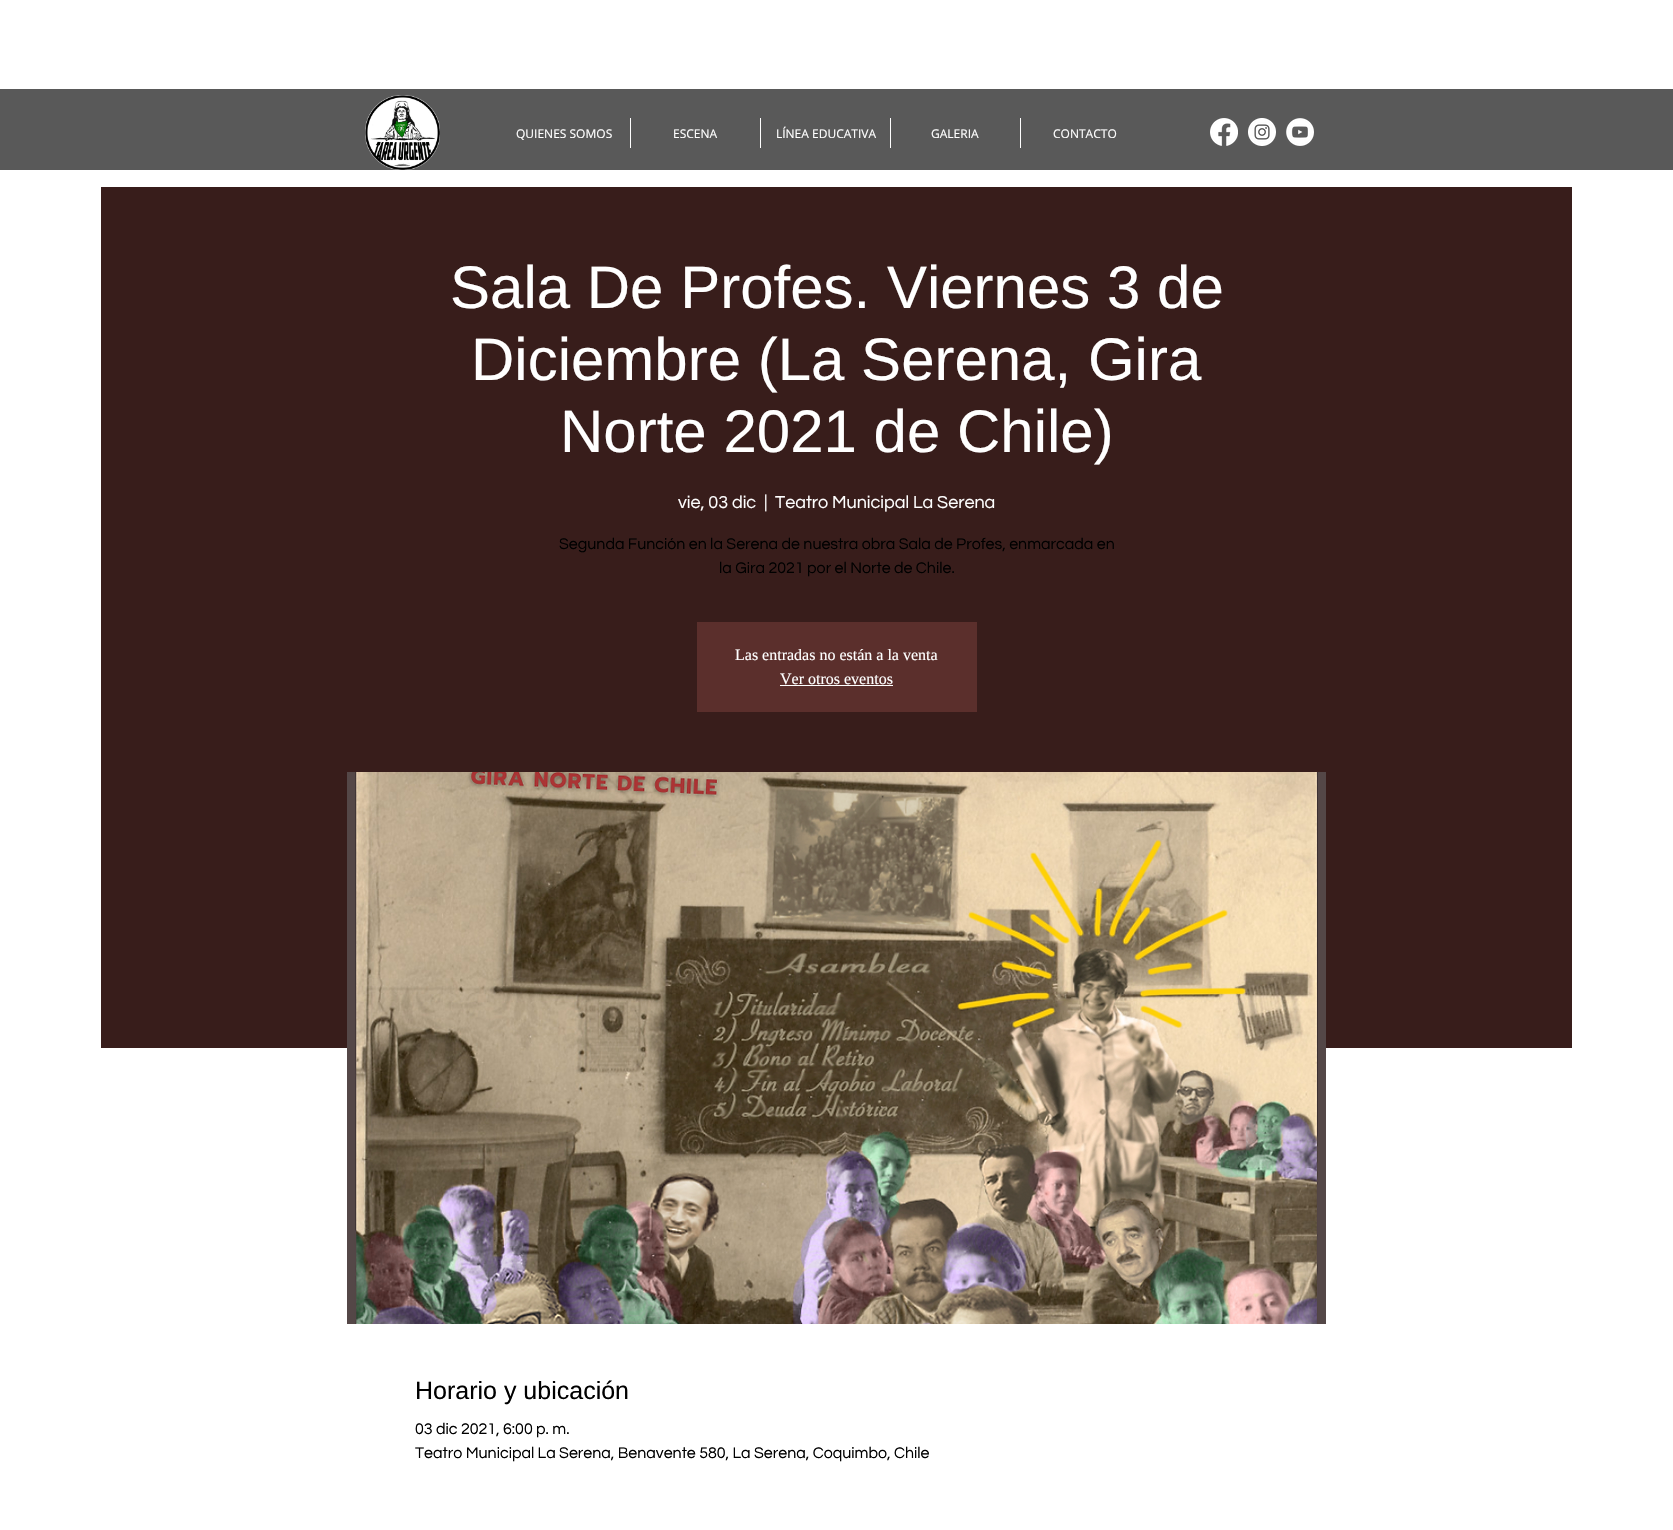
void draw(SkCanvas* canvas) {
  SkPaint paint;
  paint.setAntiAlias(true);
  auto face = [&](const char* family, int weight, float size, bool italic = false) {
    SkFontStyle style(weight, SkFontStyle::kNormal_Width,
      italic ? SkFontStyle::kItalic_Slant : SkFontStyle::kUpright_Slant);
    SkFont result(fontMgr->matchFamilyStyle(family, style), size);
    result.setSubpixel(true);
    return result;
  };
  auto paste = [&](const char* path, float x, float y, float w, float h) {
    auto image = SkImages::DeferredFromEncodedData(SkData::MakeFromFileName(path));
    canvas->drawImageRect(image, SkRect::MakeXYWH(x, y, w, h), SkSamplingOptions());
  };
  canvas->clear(0xffffffff);
  paint.setColor(0xff595959);
  canvas->drawRect(SkRect::MakeXYWH(0, 89, 1673, 81), paint);
  paste("img/1.png", 365, 95, 75, 75);
  {
    const struct { float x, y, w, h; SkColor color; } items[] = {
      {630, 118, 1, 30, 0xffffffff},
      {760, 118, 1, 30, 0xffffffff},
      {890, 118, 1, 30, 0xffffffff},
      {1020, 118, 1, 30, 0xffffffff},
    };
    for (auto [x, y, w, h, color] : items) {
      paint.setColor(color);
      canvas->drawRect(SkRect::MakeXYWH(x, y, w, h), paint);
    }
  }
  paste("img/2.png", 1210, 118, 28, 28);
  paste("img/3.png", 1248, 118, 28, 28);
  paste("img/4.png", 1286, 118, 28, 28);
  {
    const struct { float x, y, w, h; SkColor color; } items[] = {
      {101, 187, 1471, 861, 0xff381d1b},
      {697, 622, 280, 90, 0xff5b2f2c},
      {780, 685, 113, 1, 0xffffffff},
    };
    for (auto [x, y, w, h, color] : items) {
      paint.setColor(color);
      canvas->drawRect(SkRect::MakeXYWH(x, y, w, h), paint);
    }
  }
  paste("img/5.png", 347, 772, 979, 552);
  auto f0 = face("Open Sans", 400, 12);
  {
    const struct { const char* s; float x, y; } items[] = {
      {"QUIENES SOMOS", 516, 138},
      {"ESCENA", 673, 138},
      {"LÍNEA EDUCATIVA", 776, 138},
      {"GALERIA", 931, 138},
      {"CONTACTO", 1053, 138},
    };
    for (auto [s, x, y] : items) {
      canvas->drawString(s, x, y, f0, paint);
    }
  }
  auto f1 = face("Liberation Sans", 400, 60);
  {
    const struct { const char* s; float x, y; } items[] = {
      {"Sala De Profes. Viernes 3 de", 450, 308},
      {"Diciembre (La Serena, Gira", 471, 380},
      {"Norte 2021 de Chile)", 560, 452},
    };
    for (auto [s, x, y] : items) {
      canvas->drawString(s, x, y, f1, paint);
    }
  }
  auto f2 = face("Questrial", 400, 18);
  {
    const struct { const char* s; float x, y; } items[] = {
      {"vie, 03 dic", 678, 508},
      {"|", 764, 508},
      {"Teatro Municipal La Serena", 775, 508},
    };
    for (auto [s, x, y] : items) {
      canvas->drawString(s, x, y, f2, paint);
    }
  }
  auto f3 = face("Questrial", 400, 16);
  paint.setColor(0xff000000);
  canvas->drawString("Segunda Función en la Serena de nuestra obra Sala de Profes, enmarcada en", 559, 549, f3, paint);
  canvas->drawString("la Gira 2021 por el Norte de Chile.", 719, 573, f3, paint);
  auto f4 = face("Liberation Serif", 400, 16);
  paint.setColor(0xffffffff);
  canvas->drawString("Las entradas no están a la venta", 735, 660, f4, paint);
  canvas->drawString("Ver otros eventos", 780, 684, f4, paint);
  auto f5 = face("Liberation Sans", 400, 25);
  paint.setColor(0xff000000);
  canvas->drawString("Horario y ubicación", 415, 1399, f5, paint);
  canvas->drawString("03 dic 2021, 6:00 p. m.", 415, 1434, f3, paint);
  canvas->drawString("Teatro Municipal La Serena, Benavente 580, La Serena, Coquimbo, Chile", 415, 1458, f3, paint);
}
